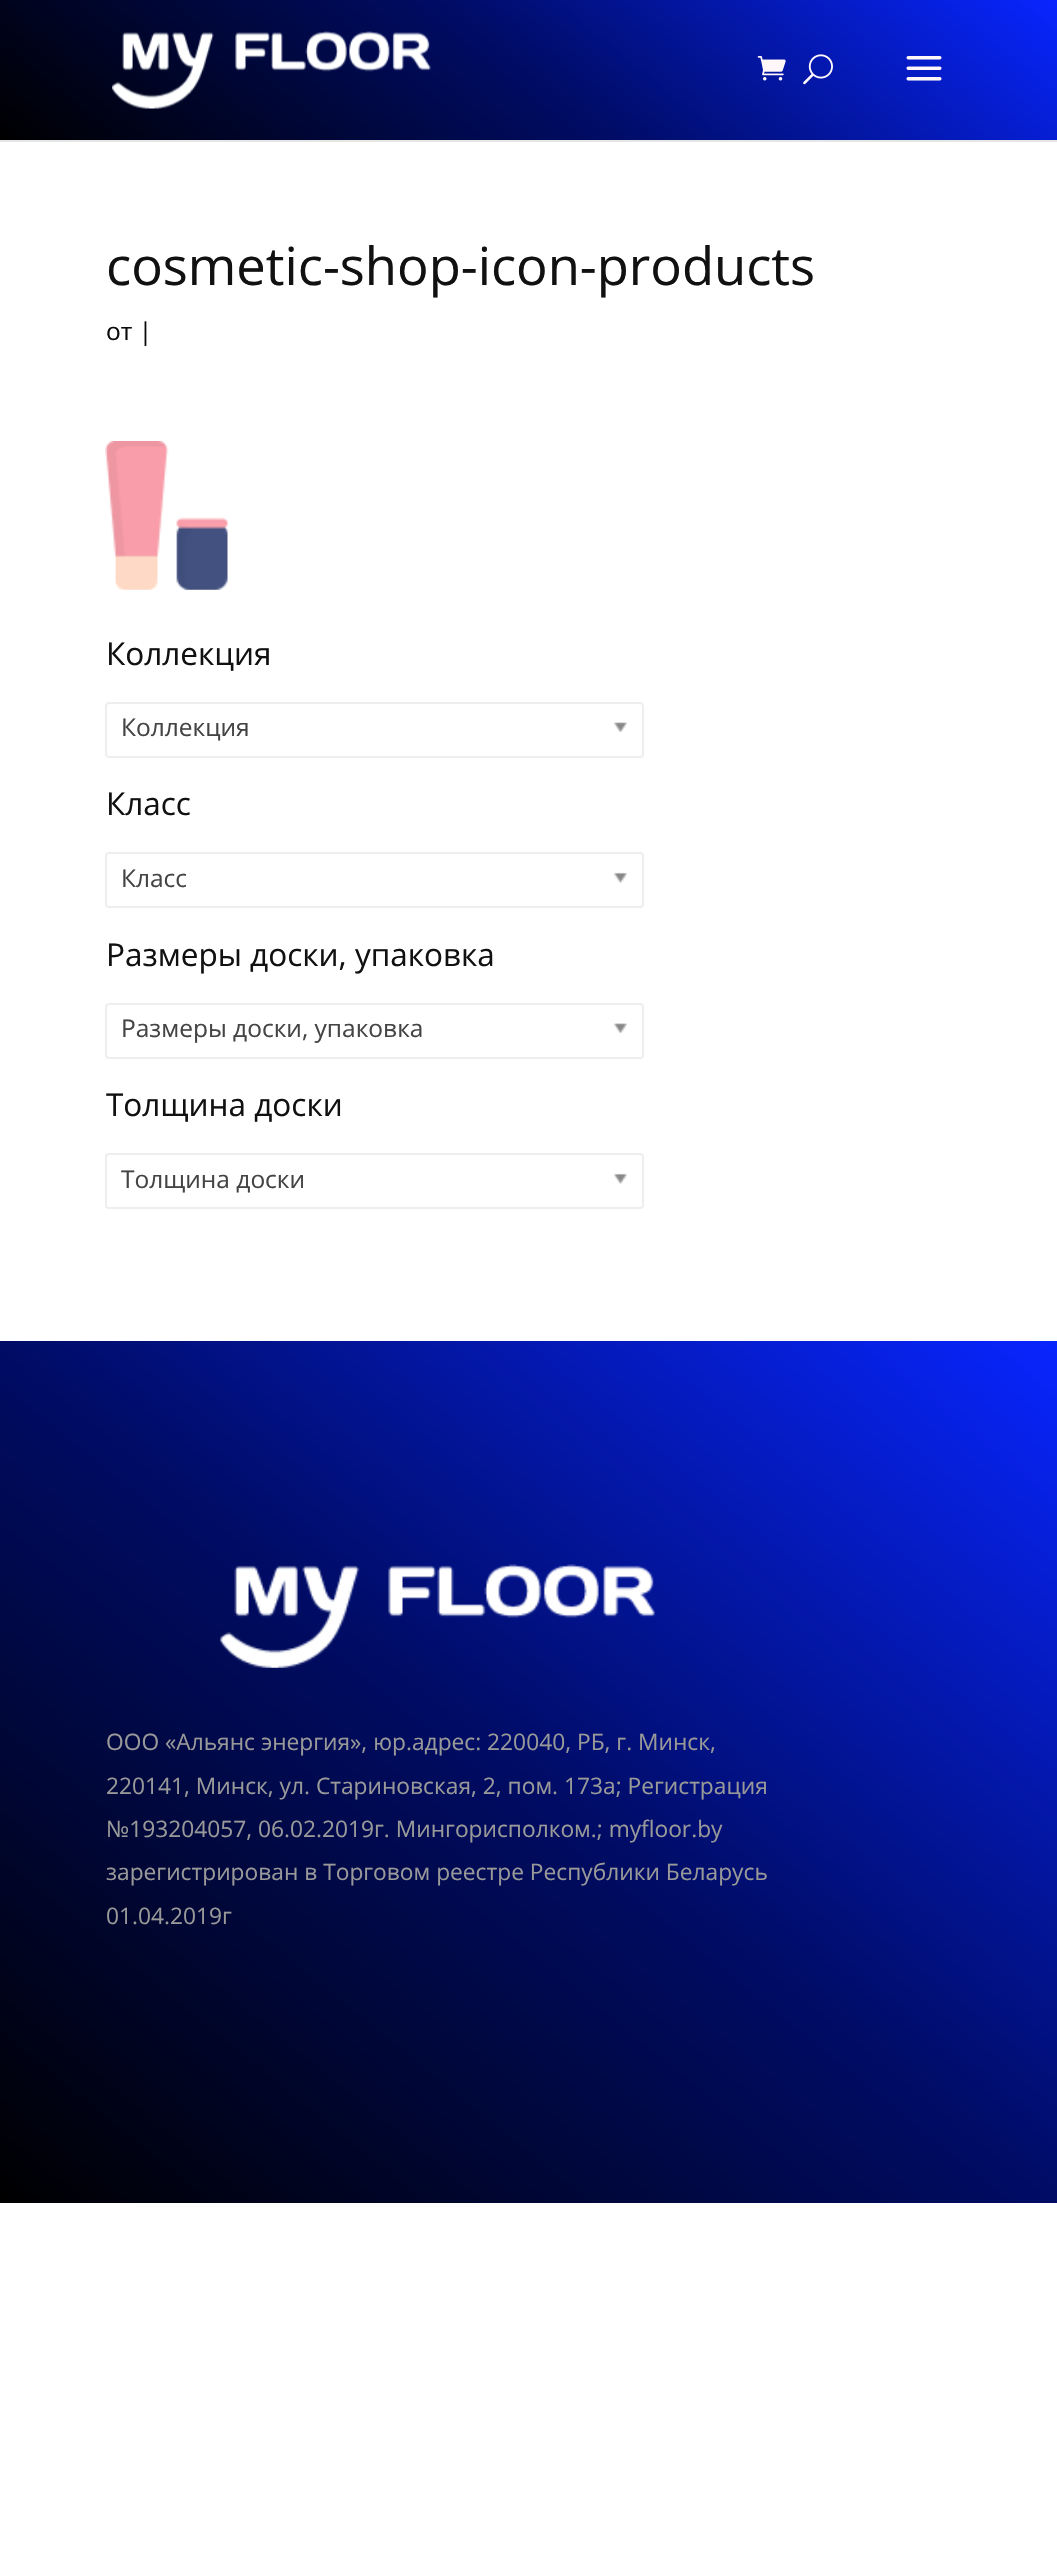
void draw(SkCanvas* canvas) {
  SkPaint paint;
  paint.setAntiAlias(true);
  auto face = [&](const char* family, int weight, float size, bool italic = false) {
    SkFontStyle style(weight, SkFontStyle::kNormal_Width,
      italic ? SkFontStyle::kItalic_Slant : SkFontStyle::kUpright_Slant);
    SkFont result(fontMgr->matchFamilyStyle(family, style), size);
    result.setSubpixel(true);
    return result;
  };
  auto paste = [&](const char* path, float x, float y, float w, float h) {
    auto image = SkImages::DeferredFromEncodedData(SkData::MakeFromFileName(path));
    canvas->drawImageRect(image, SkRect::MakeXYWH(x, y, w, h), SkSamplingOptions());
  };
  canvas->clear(0xffffffff);
  paint.setColor(0xffe6e6e6);
  canvas->drawRect(SkRect::MakeXYWH(0, 140, 1057, 2), paint);
  {
    const SkColor colors[] = {0xff0825ff, 0xff000c65, 0xff000000};
    const float stops[] = {0, 0.5f, 1};
    const SkPoint ends[] = {{772, -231}, {285, 371}};
    paint.setShader(SkGradientShader::MakeLinear(ends, colors, stops, 3, SkTileMode::kClamp));
    paint.setAlpha(255);
  }
  canvas->drawRect(SkRect::MakeXYWH(0, 0, 1057, 140), paint);
  paste("img/1.png", 112, 31, 319, 78);
  paste("img/2.png", 757, 56, 29, 25);
  paste("img/3.png", 803, 54, 30, 31);
  paste("img/4.png", 906, 56, 36, 25);
  paste("img/5.png", 105, 441, 123, 149);
  paint.setStroke(true);
  paint.setStrokeWidth(2);
  paint.setShader(nullptr);
  paint.setColor(0xffeeeeee);
  canvas->drawRoundRect(SkRect::MakeXYWH(106, 703, 537, 54), 3, 3, paint);
  paste("img/6.png", 614, 722, 13, 11);
  canvas->drawRoundRect(SkRect::MakeXYWH(106, 853, 537, 54), 3, 3, paint);
  paste("img/7.png", 614, 872, 13, 12);
  canvas->drawRoundRect(SkRect::MakeXYWH(106, 1004, 537, 54), 3, 3, paint);
  paste("img/6.png", 614, 1023, 13, 11);
  canvas->drawRoundRect(SkRect::MakeXYWH(106, 1154, 537, 54), 3, 3, paint);
  paste("img/7.png", 614, 1173, 13, 12);
  paint.setStroke(false);
  {
    const SkColor colors[] = {0xff0825ff, 0xff000c65, 0xff000000};
    const float stops[] = {0, 0.5f, 1};
    const SkPoint ends[] = {{949, 1253}, {108, 2291}};
    paint.setShader(SkGradientShader::MakeLinear(ends, colors, stops, 3, SkTileMode::kClamp));
    paint.setAlpha(255);
  }
  canvas->drawRect(SkRect::MakeXYWH(0, 1341, 1057, 862), paint);
  paste("img/8.png", 220, 1564, 435, 104);
  auto f0 = face("Open Sans", 400, 52.5f);
  paint.setShader(nullptr);
  paint.setColor(0xff111111);
  canvas->drawString("cosmetic-shop-icon-products", 106, 285, f0, paint);
  auto f1 = face("Open Sans", 400, 24.5f);
  paint.setColor(0xff0a0a0a);
  canvas->drawString("от |", 106, 340, f1, paint);
  auto f2 = face("Open Sans", 400, 31.5f);
  paint.setColor(0xff111111);
  canvas->drawString("Коллекция", 106, 665, f2, paint);
  paint.setColor(0xff444444);
  canvas->drawString("Коллекция", 121, 736, f1, paint);
  paint.setColor(0xff111111);
  canvas->drawString("Класс", 106, 815, f2, paint);
  paint.setColor(0xff444444);
  canvas->drawString("Класс", 121, 887, f1, paint);
  paint.setColor(0xff111111);
  canvas->drawString("Размеры доски, упаковка", 106, 966, f2, paint);
  paint.setColor(0xff444444);
  canvas->drawString("Размеры доски, упаковка", 121, 1037, f1, paint);
  paint.setColor(0xff111111);
  canvas->drawString("Толщина доски", 106, 1116, f2, paint);
  paint.setColor(0xff444444);
  canvas->drawString("Толщина доски", 121, 1188, f1, paint);
  auto f3 = face("Open Sans", 400, 22.75f);
  paint.setColor(0xff999999);
  {
    const struct { const char* s; float x, y; } items[] = {
      {"ООО «Альянс энергия», юр.адрес: 220040, РБ, г. Минск,", 106, 1750},
      {"220141, Минск, ул. Стариновская, 2, пом. 173а; Регистрация", 106, 1794},
      {"№193204057, 06.02.2019г. Мингорисполком.; myfloor.by", 106, 1837},
      {"зарегистрирован в Торговом реестре Республики Беларусь", 106, 1880},
      {"01.04.2019г", 106, 1924},
    };
    for (auto [s, x, y] : items) {
      canvas->drawString(s, x, y, f3, paint);
    }
  }
}
